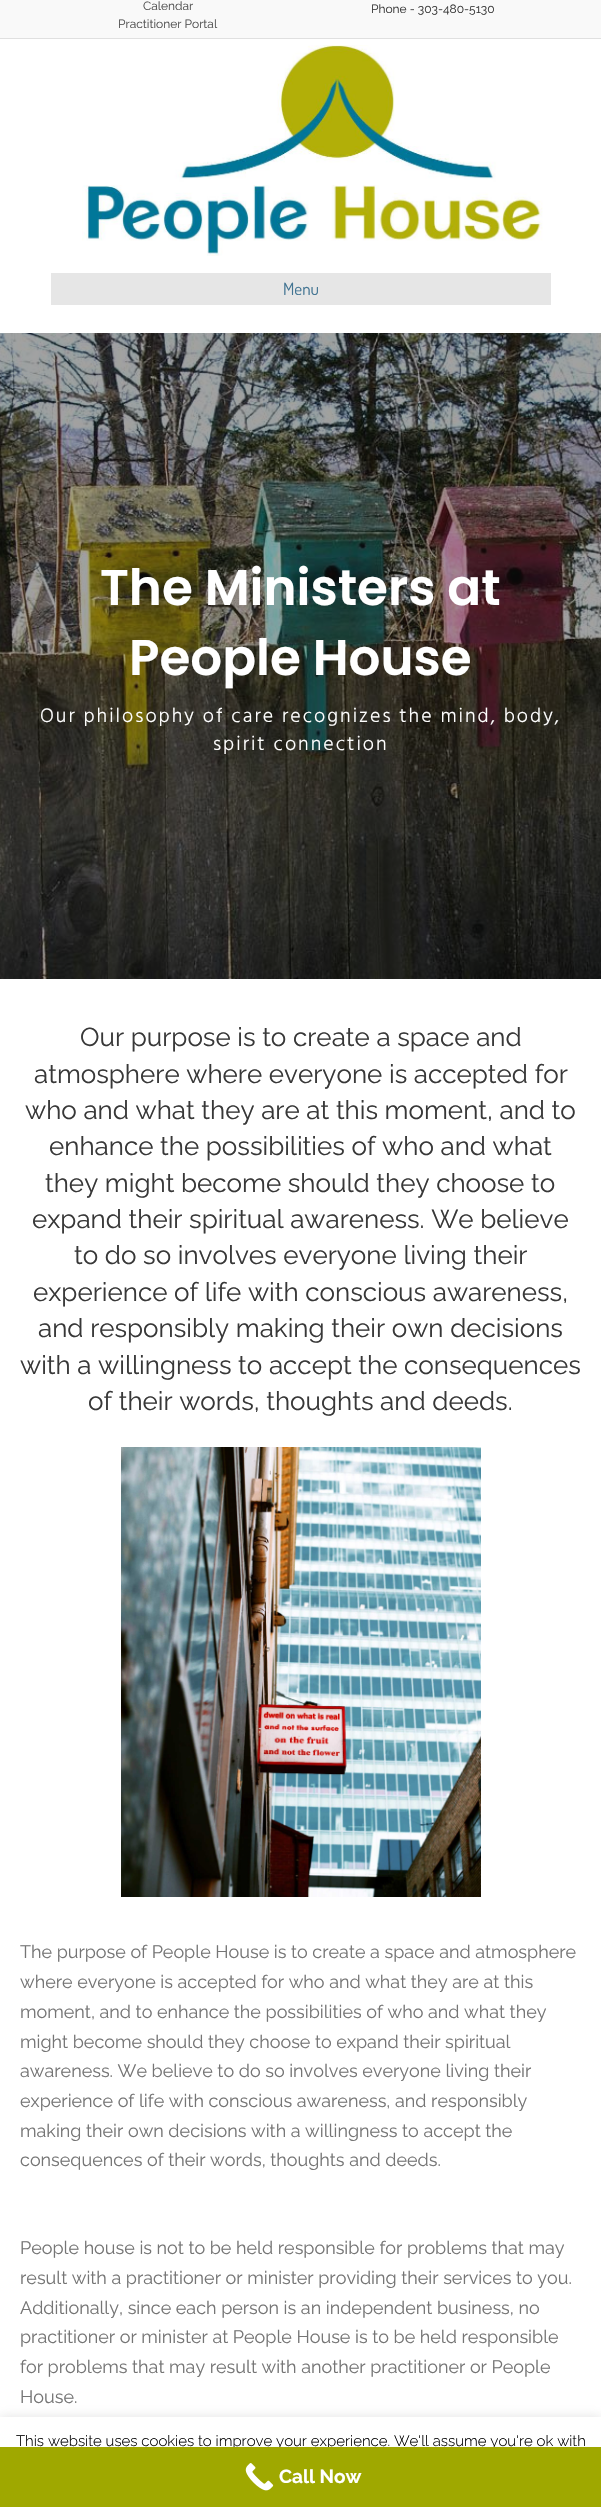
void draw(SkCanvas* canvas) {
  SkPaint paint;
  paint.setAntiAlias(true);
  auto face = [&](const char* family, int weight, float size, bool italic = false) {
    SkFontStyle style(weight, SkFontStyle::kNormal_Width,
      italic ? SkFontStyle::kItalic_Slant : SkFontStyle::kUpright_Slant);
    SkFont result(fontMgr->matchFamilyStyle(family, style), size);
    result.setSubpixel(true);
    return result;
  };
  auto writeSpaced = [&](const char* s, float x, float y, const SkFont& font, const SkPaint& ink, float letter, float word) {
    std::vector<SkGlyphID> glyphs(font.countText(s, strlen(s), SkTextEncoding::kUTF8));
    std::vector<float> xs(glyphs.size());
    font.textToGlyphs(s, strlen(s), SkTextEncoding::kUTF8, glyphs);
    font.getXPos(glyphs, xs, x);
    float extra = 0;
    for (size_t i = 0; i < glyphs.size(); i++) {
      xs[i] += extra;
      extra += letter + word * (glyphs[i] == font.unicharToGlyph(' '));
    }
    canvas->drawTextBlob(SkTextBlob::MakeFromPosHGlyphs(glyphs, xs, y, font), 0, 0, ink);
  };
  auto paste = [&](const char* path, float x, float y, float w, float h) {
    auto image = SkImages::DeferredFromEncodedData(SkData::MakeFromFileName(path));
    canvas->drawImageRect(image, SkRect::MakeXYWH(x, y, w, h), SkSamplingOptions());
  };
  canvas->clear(0xfff9f9f9);
  paint.setColor(0xffe0e0e0);
  canvas->drawRect(SkRect::MakeXYWH(0, 38, 601, 1), paint);
  paint.setColor(0xffffffff);
  canvas->drawRect(SkRect::MakeXYWH(0, 39, 601, 294), paint);
  paste("img/1.png", 82, 45, 461, 211);
  paint.setColor(0xffe6e6e6);
  canvas->drawRect(SkRect::MakeXYWH(51, 273, 500, 32), paint);
  paint.setColor(0xffffffff);
  canvas->drawRect(SkRect::MakeXYWH(0, 979, 601, 1438), paint);
  paste("img/2.png", 0, 333, 601, 646);
  paste("img/3.png", 121, 1447, 360, 450);
  paint.setColor(0x4dacabab);
  paint.setMaskFilter(SkMaskFilter::MakeBlur(kNormal_SkBlurStyle, 5));
  canvas->drawRect(SkRect::MakeXYWH(0, 2416, 601, 90), paint);
  paint.setMaskFilter(nullptr);
  paint.setColor(0xffffffff);
  canvas->drawRect(SkRect::MakeXYWH(0, 2417, 601, 30), paint);
  auto f0 = face("Raleway", 400, 12);
  paint.setColor(0xff515151);
  canvas->drawString("Calendar", 143, 10, f0, paint);
  canvas->drawString("Practitioner Portal", 118, 28, f0, paint);
  paint.setColor(0xff383838);
  canvas->drawString("Phone - 303-480-5130", 371, 13, f0, paint);
  auto f1 = face("Dosis", 400, 17);
  paint.setColor(0xff437593);
  canvas->drawString("Menu", 283, 295, f1, paint);
  auto f2 = face("Poppins", 600, 50);
  paint.setColor(0xffffffff);
  canvas->drawString("The Ministers at", 100, 605, f2, paint);
  canvas->drawString("People House", 129, 675, f2, paint);
  auto f3 = face("Hind", 300, 20);
  writeSpaced("Our philosophy of care recognizes the mind, body,", 40, 722, f3, paint, 2, 0);
  writeSpaced("spirit connection", 213, 750, f3, paint, 2, 0);
  auto f4 = face("Raleway", 400, 26);
  paint.setColor(0xff383838);
  {
    const struct { const char* s; float x, y; } items[] = {
      {"Our purpose is to create a space and", 80, 1046},
      {"atmosphere where everyone is accepted for", 34, 1083},
      {"who and what they are at this moment, and to", 25, 1119},
      {"enhance the possibilities of who and what", 49, 1155},
      {"they might become should they choose to", 45, 1192},
      {"expand their spiritual awareness. We believe", 32, 1228},
      {"to do so involves everyone living their", 74, 1264},
      {"experience of life with conscious awareness,", 33, 1301},
      {"and responsibly making their own decisions", 38, 1337},
      {"with a willingness to accept the consequences", 20, 1374},
      {"of their words, thoughts and deeds.", 88, 1410},
    };
    for (auto [s, x, y] : items) {
      canvas->drawString(s, x, y, f4, paint);
    }
  }
  auto f5 = face("Raleway", 400, 18);
  paint.setColor(0xff757575);
  {
    const struct { const char* s; float x, y; } items[] = {
      {"The purpose of People House is to create a space and atmosphere", 20, 1958},
      {"where everyone is accepted for who and what they are at this", 20, 1988},
      {"moment, and to enhance the possibilities of who and what they", 20, 2018},
      {"might become should they choose to expand their spiritual", 20, 2048},
      {"awareness. We believe to do so involves everyone living their", 20, 2077},
      {"experience of life with conscious awareness, and responsibly", 20, 2107},
      {"making their own decisions with a willingness to accept the", 20, 2137},
      {"consequences of their words, thoughts and deeds.", 20, 2166},
      {"People house is not to be held responsible for problems that may", 20, 2254},
      {"result with a practitioner or minister providing their services to you.", 20, 2284},
      {"Additionally, since each person is an independent business, no", 20, 2314},
      {"practitioner or minister at People House is to be held responsible", 20, 2343},
      {"for problems that may result with another practitioner or People", 20, 2373},
      {"House.", 20, 2403},
    };
    for (auto [s, x, y] : items) {
      canvas->drawString(s, x, y, f5, paint);
    }
  }
  auto f6 = face("Raleway", 300, 15);
  paint.setColor(0xff000000);
  canvas->drawString("This website uses cookies to improve your experience. We'll assume you're ok with", 16, 2446, f6, paint);
  paint.setColor(0xff9fa800);
  canvas->drawRect(SkRect::MakeXYWH(0, 2447, 601, 60), paint);
  paste("img/4.png", 245, 2463, 29, 28);
  auto f7 = face("Raleway", 700, 19);
  paint.setColor(0xffffffff);
  canvas->drawString("Call Now", 279, 2483, f7, paint);
}
